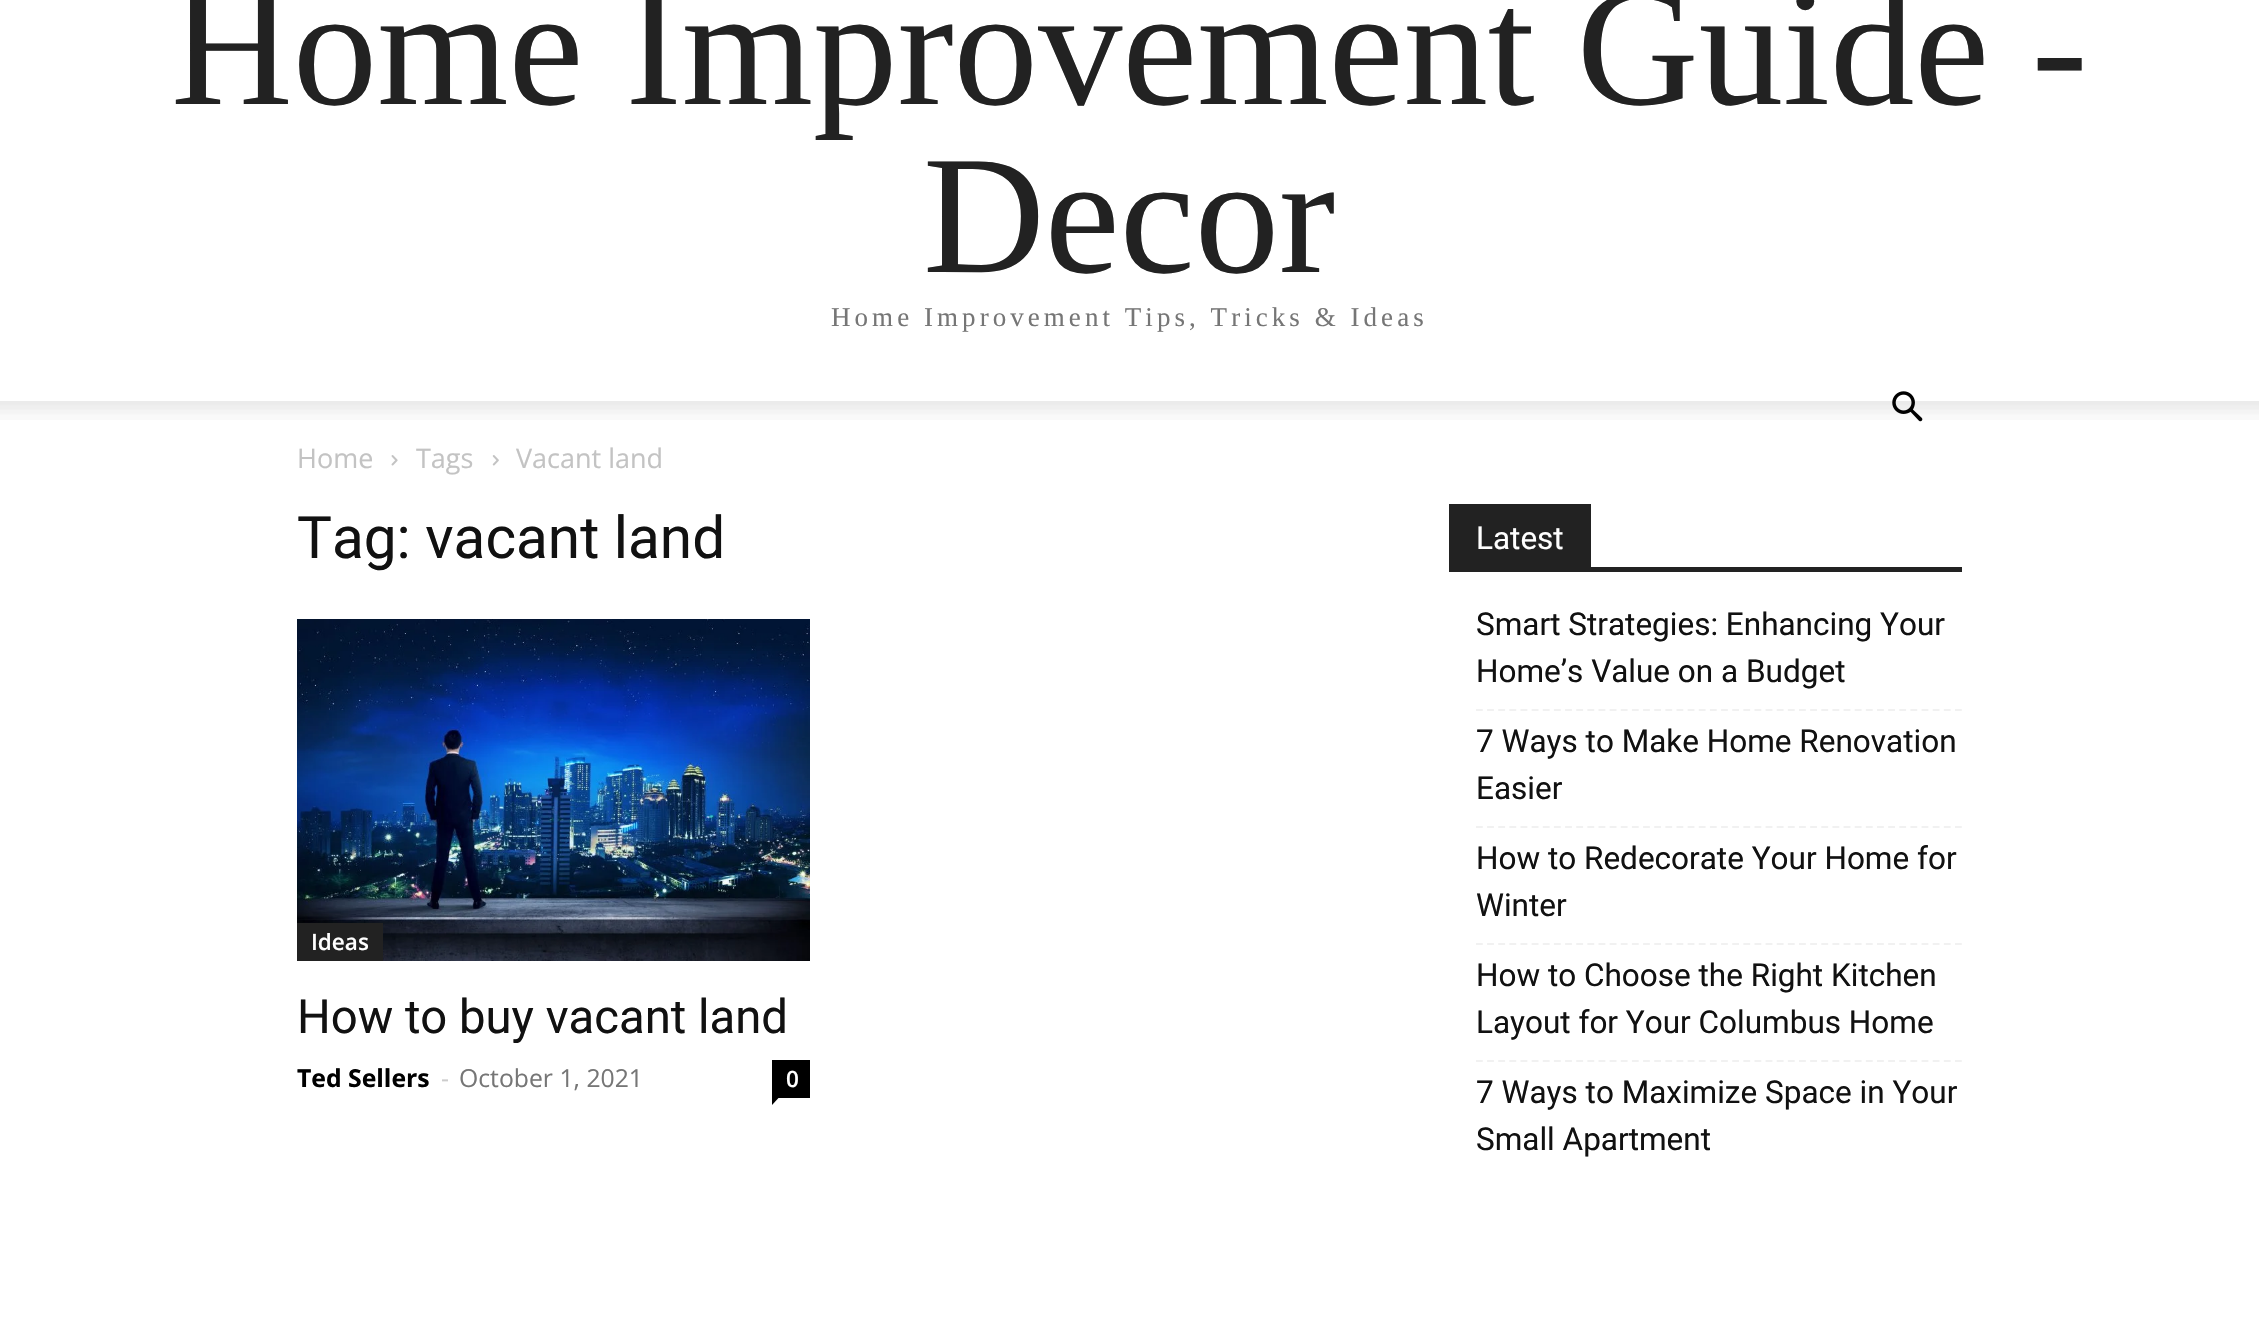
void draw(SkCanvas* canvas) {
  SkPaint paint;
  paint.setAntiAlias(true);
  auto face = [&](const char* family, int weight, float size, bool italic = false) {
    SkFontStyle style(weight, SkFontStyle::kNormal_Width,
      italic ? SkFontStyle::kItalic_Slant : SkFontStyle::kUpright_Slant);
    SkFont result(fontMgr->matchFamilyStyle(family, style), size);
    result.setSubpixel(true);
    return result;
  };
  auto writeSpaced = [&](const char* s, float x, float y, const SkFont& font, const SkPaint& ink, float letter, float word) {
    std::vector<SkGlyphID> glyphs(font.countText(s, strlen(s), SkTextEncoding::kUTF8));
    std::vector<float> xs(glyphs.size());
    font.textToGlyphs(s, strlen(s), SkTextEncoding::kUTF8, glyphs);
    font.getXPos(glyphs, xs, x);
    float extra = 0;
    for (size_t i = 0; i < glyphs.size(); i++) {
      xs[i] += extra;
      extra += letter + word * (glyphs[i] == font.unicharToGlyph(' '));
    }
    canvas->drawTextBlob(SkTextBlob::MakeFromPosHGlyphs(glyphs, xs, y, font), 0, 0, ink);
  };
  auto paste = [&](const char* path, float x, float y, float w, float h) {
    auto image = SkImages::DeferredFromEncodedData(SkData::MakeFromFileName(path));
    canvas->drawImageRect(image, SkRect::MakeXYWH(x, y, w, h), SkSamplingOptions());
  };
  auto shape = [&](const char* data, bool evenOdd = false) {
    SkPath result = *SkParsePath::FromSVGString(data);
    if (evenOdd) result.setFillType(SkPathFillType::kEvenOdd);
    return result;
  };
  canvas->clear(0xffffffff);
  paste("img/2.png", 0, 401, 2259, 19);
  paste("img/1.png", 1892, 391, 31, 31);
  paste("img/3.png", 391, 455, 7, 11);
  paste("img/4.png", 492, 455, 7, 11);
  paste("img/5.png", 297, 619, 513, 342);
  paint.setColor(0xff222222);
  canvas->drawRect(SkRect::MakeXYWH(297, 923, 86, 38), paint);
  paint.setColor(0xff000000);
  canvas->drawRect(SkRect::MakeXYWH(772, 1060, 38, 38), paint);
  canvas->drawPath(shape("M772 1098H778.5L772 1105Z"), paint);
  paint.setColor(0xff222222);
  canvas->drawRect(SkRect::MakeXYWH(1449, 567, 513, 5), paint);
  canvas->drawRect(SkRect::MakeXYWH(1449, 504, 142, 63), paint);
  paint.setStroke(true);
  paint.setStrokeWidth(2.2f);
  paint.setColor(0xfff1f1f1);
  paint.setPathEffect(SkDashPathEffect::Make({{6.75f, 4.39f}}, 0));
  canvas->drawPath(shape("M1476 710H1962"), paint);
  paint.setPathEffect(nullptr);
  paint.setPathEffect(SkDashPathEffect::Make({{6.75f, 4.39f}}, 0));
  canvas->drawPath(shape("M1476 827H1962"), paint);
  paint.setPathEffect(nullptr);
  paint.setPathEffect(SkDashPathEffect::Make({{6.75f, 4.39f}}, 0));
  canvas->drawPath(shape("M1476 944H1962"), paint);
  paint.setPathEffect(nullptr);
  paint.setPathEffect(SkDashPathEffect::Make({{6.75f, 4.39f}}, 0));
  canvas->drawPath(shape("M1476 1061H1962"), paint);
  paint.setPathEffect(nullptr);
  auto f0 = face("Liberation Serif", 400, 168.75f);
  paint.setStroke(false);
  paint.setColor(0xff222222);
  canvas->drawString("Home Improvement Guide -", 171, 104, f0, paint);
  canvas->drawString("Decor", 923, 272, f0, paint);
  auto f1 = face("Liberation Serif", 400, 27);
  paint.setColor(0xff767676);
  writeSpaced("Home Improvement Tips, Tricks & Ideas", 831, 326, f1, paint, 4.05f, 0);
  auto f2 = face("Open Sans", 400, 27);
  paint.setColor(0xffc3c3c3);
  {
    const struct { const char* s; float x, y; } items[] = {
      {"Home", 297, 468},
      {"Tags", 416, 468},
      {"Vacant land", 516, 468},
    };
    for (auto [s, x, y] : items) {
      canvas->drawString(s, x, y, f2, paint);
    }
  }
  auto f3 = face("Roboto", 400, 58.5f);
  paint.setColor(0xff111111);
  canvas->drawString("Tag: vacant land", 297, 558, f3, paint);
  auto f4 = face("Open Sans", 600, 22.5f);
  paint.setColor(0xffffffff);
  canvas->drawString("Ideas", 311, 950, f4, paint);
  auto f5 = face("Roboto", 400, 47.25f);
  paint.setColor(0xff111111);
  canvas->drawString("How to buy vacant land", 297, 1033, f5, paint);
  auto f6 = face("Open Sans", 700, 24.75f);
  paint.setColor(0xff000000);
  canvas->drawString("Ted Sellers", 297, 1087, f6, paint);
  auto f7 = face("Open Sans", 400, 24.75f);
  paint.setColor(0xffcccccc);
  canvas->drawString("-", 441, 1087, f7, paint);
  paint.setColor(0xff767676);
  canvas->drawString("October 1, 2021", 459, 1087, f7, paint);
  paint.setColor(0xffffffff);
  canvas->drawString("0", 786, 1087, f4, paint);
  auto f8 = face("Roboto", 400, 31.5f);
  canvas->drawString("Latest", 1476, 549, f8, paint);
  paint.setColor(0xff111111);
  {
    const struct { const char* s; float x, y; } items[] = {
      {"Smart Strategies: Enhancing Your", 1476, 635},
      {"Home’s Value on a Budget", 1476, 682},
      {"7 Ways to Make Home Renovation", 1476, 752},
      {"Easier", 1476, 799},
      {"How to Redecorate Your Home for", 1476, 869},
      {"Winter", 1476, 916},
      {"How to Choose the Right Kitchen", 1476, 986},
      {"Layout for Your Columbus Home", 1476, 1033},
      {"7 Ways to Maximize Space in Your", 1476, 1103},
      {"Small Apartment", 1476, 1150},
    };
    for (auto [s, x, y] : items) {
      canvas->drawString(s, x, y, f8, paint);
    }
  }
}
